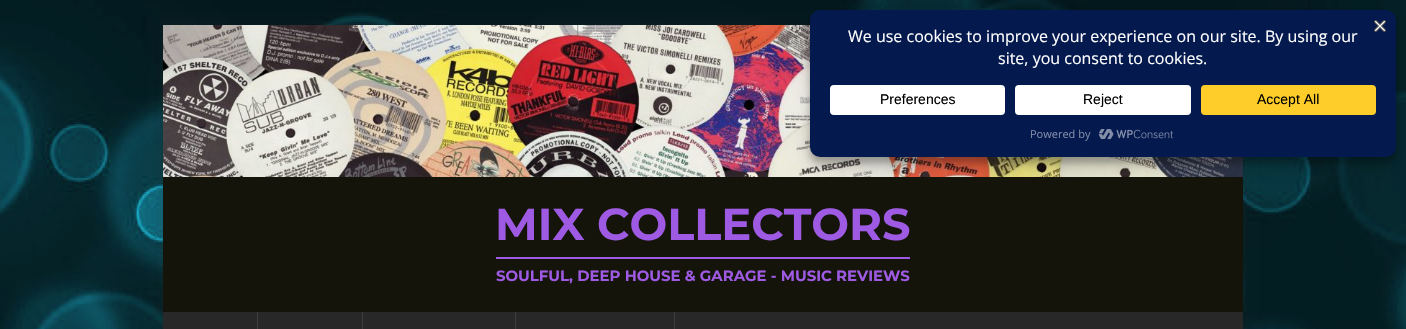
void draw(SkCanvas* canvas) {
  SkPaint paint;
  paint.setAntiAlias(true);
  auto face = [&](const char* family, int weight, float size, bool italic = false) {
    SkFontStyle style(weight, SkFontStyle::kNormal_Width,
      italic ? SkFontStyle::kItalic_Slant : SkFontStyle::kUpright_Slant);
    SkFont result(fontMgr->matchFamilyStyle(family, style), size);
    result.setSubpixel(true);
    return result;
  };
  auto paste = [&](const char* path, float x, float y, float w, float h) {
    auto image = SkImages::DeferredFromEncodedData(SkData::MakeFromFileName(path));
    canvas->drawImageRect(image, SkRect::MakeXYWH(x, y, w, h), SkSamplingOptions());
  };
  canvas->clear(0xffffffff);
  paste("img/1.png", 0, 0, 1406, 329);
  paint.setColor(0x2b323232);
  paint.setMaskFilter(SkMaskFilter::MakeBlur(kNormal_SkBlurStyle, 5));
  canvas->drawRect(SkRect::MakeXYWH(163, 25, 1080, 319), paint);
  paint.setMaskFilter(nullptr);
  paste("img/4.png", 163, 25, 1080, 152);
  paint.setColor(0x3b000000);
  paint.setMaskFilter(SkMaskFilter::MakeBlur(kNormal_SkBlurStyle, 3));
  canvas->drawRoundRect(SkRect::MakeXYWH(810, 16, 586, 147), 10, 10, paint);
  paint.setMaskFilter(nullptr);
  paint.setColor(0xff14140a);
  canvas->drawRect(SkRect::MakeXYWH(163, 177, 1080, 135), paint);
  paint.setColor(0x30000000);
  paint.setMaskFilter(SkMaskFilter::MakeBlur(kNormal_SkBlurStyle, 10));
  canvas->drawRoundRect(SkRect::MakeXYWH(810, 20, 586, 147), 10, 10, paint);
  paint.setMaskFilter(nullptr);
  paint.setColor(0xff04194e);
  canvas->drawRoundRect(SkRect::MakeXYWH(810, 10, 586, 147), 10, 10, paint);
  paste("img/2.png", 1374, 20, 12, 12);
  paint.setColor(0xffffffff);
  canvas->drawRoundRect(SkRect::MakeXYWH(830, 85, 175, 30), 4, 4, paint);
  canvas->drawRoundRect(SkRect::MakeXYWH(1015, 85, 176, 30), 4, 4, paint);
  paint.setColor(0xffffcd2a);
  canvas->drawRoundRect(SkRect::MakeXYWH(1201, 85, 175, 30), 4, 4, paint);
  paste("img/3.png", 1098, 129, 75, 11);
  {
    const struct { float x, y, w, h; SkColor color; } items[] = {
      {496, 257, 414, 2, 0xff9e5ae2},
      {163, 312, 1080, 17, 0xff282828},
      {257, 312, 1, 17, 0xff3e3e3e},
      {362, 312, 1, 17, 0xff3e3e3e},
      {515, 312, 1, 17, 0xff3e3e3e},
      {674, 312, 1, 17, 0xff3e3e3e},
    };
    for (auto [x, y, w, h, color] : items) {
      paint.setColor(color);
      canvas->drawRect(SkRect::MakeXYWH(x, y, w, h), paint);
    }
  }
  auto f0 = face("Open Sans", 400, 16);
  paint.setColor(0xffffffff);
  canvas->drawString("We use cookies to improve your experience on our site. By using our", 848, 42, f0, paint);
  canvas->drawString("site, you consent to cookies.", 998, 64, f0, paint);
  auto f1 = face("Liberation Sans", 400, 14);
  paint.setColor(0xff000000);
  {
    const struct { const char* s; float x, y; } items[] = {
      {"Preferences", 880, 104},
      {"Reject", 1083, 104},
      {"Accept All", 1257, 104},
    };
    for (auto [s, x, y] : items) {
      canvas->drawString(s, x, y, f1, paint);
    }
  }
  auto f2 = face("Open Sans", 400, 11);
  paint.setColor(0xff828ca7);
  canvas->drawString("Powered by", 1030, 138, f2, paint);
  auto f3 = face("Montserrat", 700, 44.75f);
  paint.setColor(0xff9e5ae2);
  canvas->drawString("MIX COLLECTORS", 495, 240, f3, paint);
  auto f4 = face("Montserrat", 700, 14.9f);
  canvas->drawString("SOULFUL, DEEP HOUSE & GARAGE - MUSIC REVIEWS", 496, 281, f4, paint);
}
